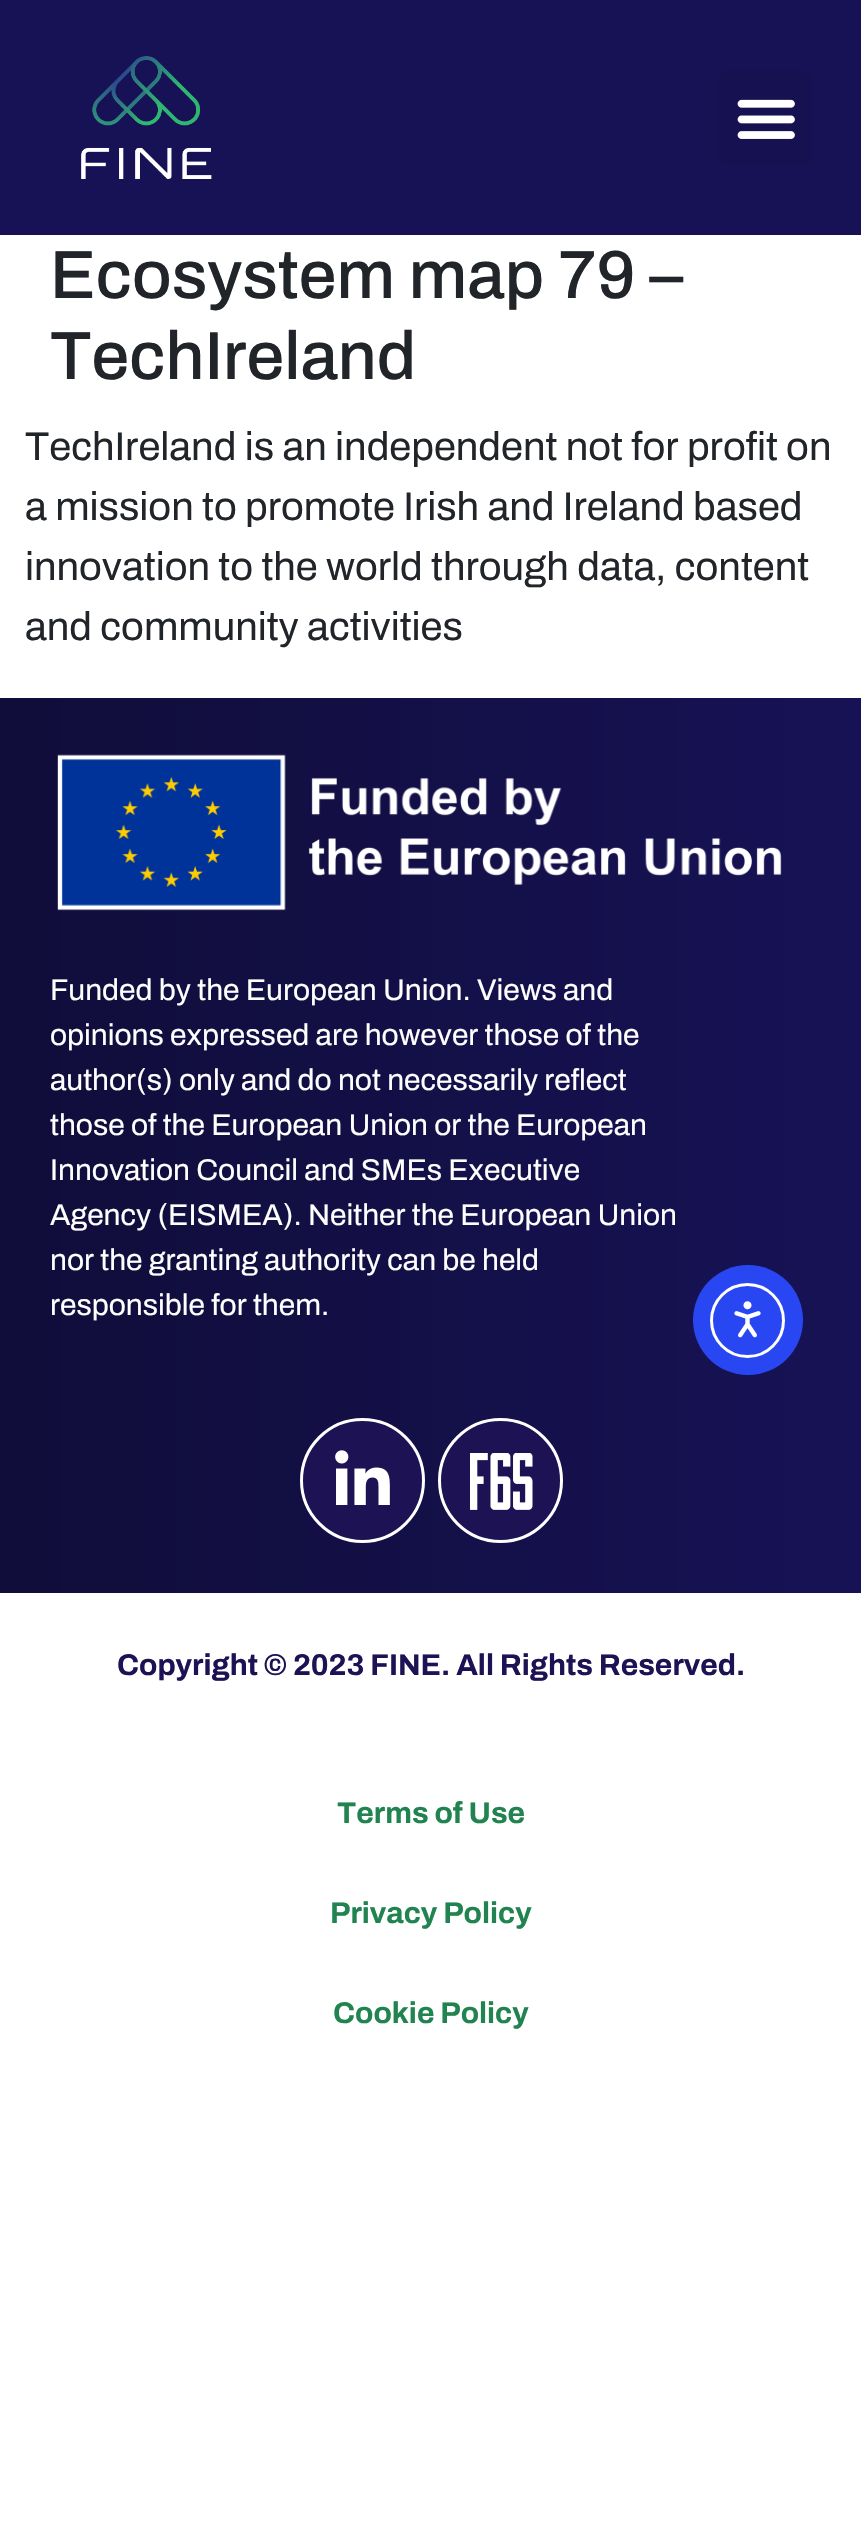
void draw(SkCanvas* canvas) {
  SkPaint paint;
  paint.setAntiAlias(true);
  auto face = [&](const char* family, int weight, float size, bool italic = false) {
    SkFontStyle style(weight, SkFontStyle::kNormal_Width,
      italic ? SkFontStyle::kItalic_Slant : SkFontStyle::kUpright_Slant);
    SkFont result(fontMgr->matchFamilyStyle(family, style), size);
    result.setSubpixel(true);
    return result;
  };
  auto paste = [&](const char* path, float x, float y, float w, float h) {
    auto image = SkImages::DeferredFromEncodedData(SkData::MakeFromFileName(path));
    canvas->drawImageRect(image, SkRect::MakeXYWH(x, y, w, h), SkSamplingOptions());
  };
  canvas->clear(0xffffffff);
  paint.setColor(0xff171255);
  canvas->drawRect(SkRect::MakeXYWH(0, 0, 861, 235), paint);
  paste("img/1.png", 81, 56, 131, 123);
  paint.setColor(0xff161151);
  canvas->drawRoundRect(SkRect::MakeXYWH(718, 70, 95, 95), 8, 8, paint);
  paste("img/2.png", 737, 99, 58, 40);
  {
    const SkColor colors[] = {0xff100d3a, 0xff171255};
    const float stops[] = {0, 1};
    const SkPoint ends[] = {{0, 1145}, {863, 1145}};
    paint.setShader(SkGradientShader::MakeLinear(ends, colors, stops, 2, SkTileMode::kClamp));
    paint.setAlpha(255);
  }
  canvas->drawRect(SkRect::MakeXYWH(0, 698, 861, 895), paint);
  paste("img/3.png", 57, 754, 725, 157);
  paint.setShader(nullptr);
  paint.setColor(0xff1d1254);
  canvas->drawCircle(362.5f, 1480.5f, 61, paint);
  paint.setStroke(true);
  paint.setStrokeWidth(3);
  paint.setColor(0xffffffff);
  canvas->drawCircle(362.5f, 1480.5f, 61, paint);
  paste("img/4.png", 335, 1450, 55, 55);
  paint.setStroke(false);
  paint.setColor(0xff1d1254);
  canvas->drawCircle(500.5f, 1480.5f, 61, paint);
  paint.setStroke(true);
  paint.setColor(0xffffffff);
  canvas->drawCircle(500.5f, 1480.5f, 61, paint);
  paste("img/5.png", 470, 1453, 63, 57);
  paint.setStroke(false);
  paint.setColor(0xff2847f3);
  canvas->drawCircle(748, 1320, 55, paint);
  paint.setStroke(true);
  paint.setColor(0xffffffff);
  canvas->drawCircle(747.5f, 1320.5f, 36, paint);
  paste("img/6.png", 734, 1301, 27, 37);
  auto f0 = face("Archivo", 500, 68);
  paint.setStroke(false);
  paint.setColor(0xff212529);
  canvas->drawString("Ecosystem map 79 –", 50, 298, f0, paint);
  canvas->drawString("TechIreland", 50, 379, f0, paint);
  auto f1 = face("Archivo", 400, 40);
  {
    const struct { const char* s; float x, y; } items[] = {
      {"TechIreland is an independent not for profit on", 25, 460},
      {"a mission to promote Irish and Ireland based", 25, 520},
      {"innovation to the world through data, content", 25, 580},
      {"and community activities", 25, 640},
    };
    for (auto [s, x, y] : items) {
      canvas->drawString(s, x, y, f1, paint);
    }
  }
  auto f2 = face("Archivo", 400, 30);
  paint.setColor(0xffffffff);
  {
    const struct { const char* s; float x, y; } items[] = {
      {"Funded by the European Union. Views and", 50, 1000},
      {"opinions expressed are however those of the", 50, 1045},
      {"author(s) only and do not necessarily reflect", 50, 1090},
      {"those of the European Union or the European", 50, 1135},
      {"Innovation Council and SMEs Executive", 50, 1180},
      {"Agency (EISMEA). Neither the European Union", 50, 1225},
      {"nor the granting authority can be held", 50, 1270},
      {"responsible for them.", 50, 1315},
    };
    for (auto [s, x, y] : items) {
      canvas->drawString(s, x, y, f2, paint);
    }
  }
  auto f3 = face("Archivo", 700, 30);
  paint.setColor(0xff1d1254);
  canvas->drawString("Copyright © 2023 FINE. All Rights Reserved.", 117, 1675, f3, paint);
  paint.setColor(0xff208350);
  {
    const struct { const char* s; float x, y; } items[] = {
      {"Terms of Use", 337, 1823},
      {"Privacy Policy", 330, 1923},
      {"Cookie Policy", 333, 2023},
    };
    for (auto [s, x, y] : items) {
      canvas->drawString(s, x, y, f3, paint);
    }
  }
}
